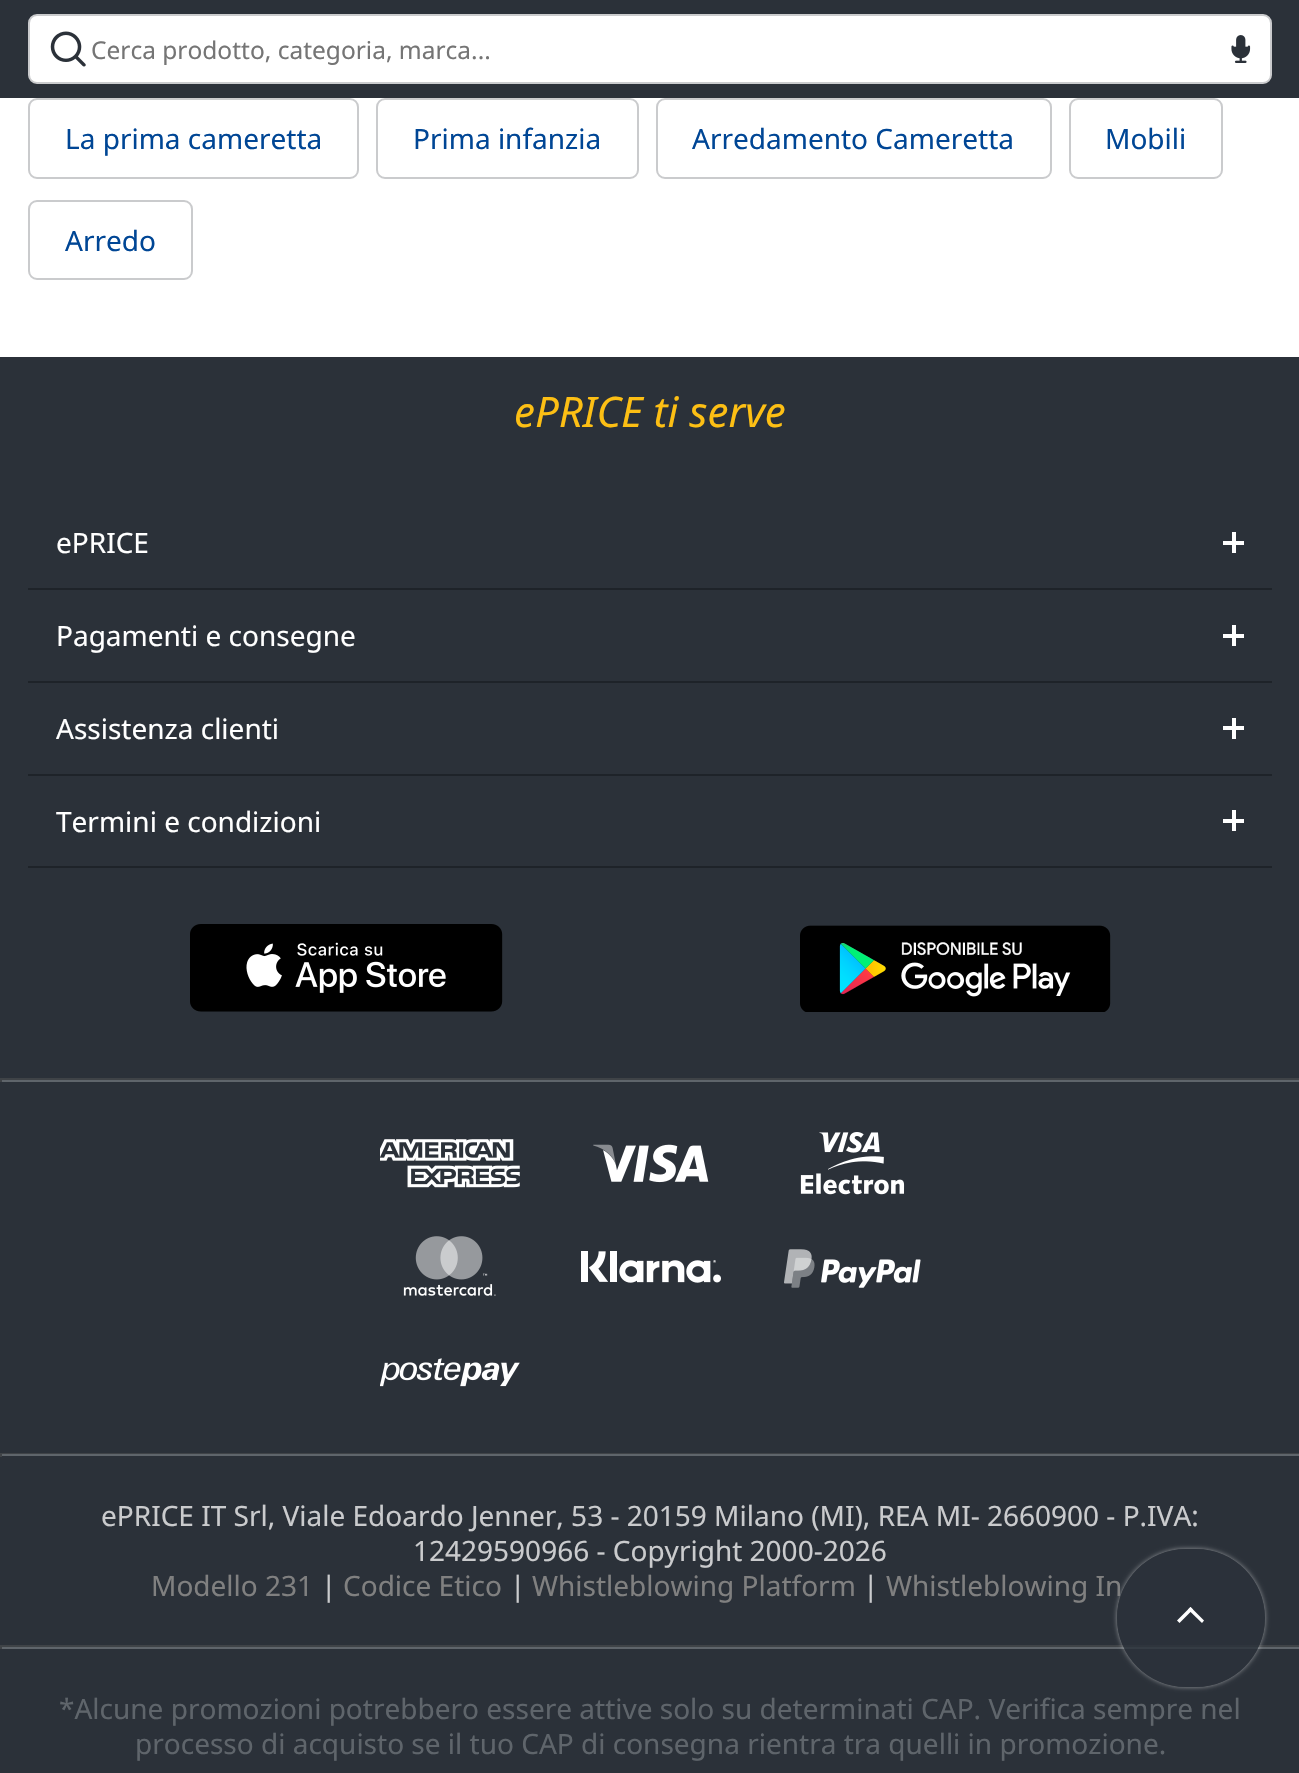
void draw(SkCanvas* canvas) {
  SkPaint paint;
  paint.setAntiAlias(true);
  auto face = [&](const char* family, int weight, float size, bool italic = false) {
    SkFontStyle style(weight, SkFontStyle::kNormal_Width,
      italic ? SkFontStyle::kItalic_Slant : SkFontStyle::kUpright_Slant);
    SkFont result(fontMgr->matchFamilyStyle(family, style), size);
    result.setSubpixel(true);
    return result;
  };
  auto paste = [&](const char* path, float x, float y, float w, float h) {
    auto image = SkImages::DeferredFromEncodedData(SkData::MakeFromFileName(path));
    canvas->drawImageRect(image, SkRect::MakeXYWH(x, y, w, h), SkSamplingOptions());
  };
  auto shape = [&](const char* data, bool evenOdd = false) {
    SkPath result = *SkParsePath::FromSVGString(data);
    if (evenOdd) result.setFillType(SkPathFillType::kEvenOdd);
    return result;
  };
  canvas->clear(0xffffffff);
  paint.setColor(0xff2b3139);
  canvas->drawRect(SkRect::MakeXYWH(0, 0, 1299, 98), paint);
  paint.setColor(0xffffffff);
  canvas->drawRoundRect(SkRect::MakeXYWH(29, 15, 1242, 68), 8, 8, paint);
  paint.setStroke(true);
  paint.setStrokeWidth(2);
  paint.setColor(0xffcacbcd);
  canvas->drawRoundRect(SkRect::MakeXYWH(29, 15, 1242, 68), 8, 8, paint);
  paste("img/1.png", 50, 31, 36, 36);
  paste("img/2.png", 1231, 35, 20, 28);
  canvas->drawRoundRect(SkRect::MakeXYWH(29, 99, 329, 79), 8, 8, paint);
  canvas->drawRoundRect(SkRect::MakeXYWH(377, 99, 261, 79), 8, 8, paint);
  canvas->drawRoundRect(SkRect::MakeXYWH(657, 99, 394, 79), 8, 8, paint);
  canvas->drawRoundRect(SkRect::MakeXYWH(1070, 99, 152, 79), 8, 8, paint);
  canvas->drawRoundRect(SkRect::MakeXYWH(29, 201, 163, 78), 8, 8, paint);
  paint.setStroke(false);
  {
    const struct { float x, y, w, h; SkColor color; } items[] = {
      {0, 357, 1299, 1416, 0xff2b3139},
      {28, 588, 1244, 2, 0xff1e2329},
      {1223, 541, 21, 4, 0xffffffff},
      {1232, 532, 4, 21, 0xffffffff},
      {28, 681, 1244, 2, 0xff1e2329},
      {1223, 634, 21, 4, 0xffffffff},
      {1232, 625, 4, 21, 0xffffffff},
      {28, 774, 1244, 2, 0xff1e2329},
      {1223, 726, 21, 4, 0xffffffff},
      {1232, 718, 4, 21, 0xffffffff},
      {28, 866, 1244, 2, 0xff1e2329},
      {1223, 819, 21, 4, 0xffffffff},
      {1232, 810, 4, 21, 0xffffffff},
    };
    for (auto [x, y, w, h, color] : items) {
      paint.setColor(color);
      canvas->drawRect(SkRect::MakeXYWH(x, y, w, h), paint);
    }
  }
  paste("img/3.png", 190, 924, 313, 88);
  paste("img/4.png", 800, 925, 311, 87);
  {
    const struct { float x, y, w, h; SkColor color; } items[] = {
      {0, 1078, 1299, 2, 0xff3f4347},
      {0, 1080, 1299, 2, 0xff5f656b},
      {0, 1078, 2, 4, 0xff3f4347},
    };
    for (auto [x, y, w, h, color] : items) {
      paint.setColor(color);
      canvas->drawRect(SkRect::MakeXYWH(x, y, w, h), paint);
    }
  }
  paste("img/5.png", 380, 1139, 140, 49);
  paste("img/6.png", 593, 1144, 116, 39);
  paste("img/7.png", 800, 1132, 105, 63);
  paste("img/8.png", 403, 1236, 93, 60);
  paste("img/9.png", 581, 1251, 140, 32);
  paste("img/10.png", 784, 1249, 137, 39);
  paste("img/11.png", 380, 1358, 140, 29);
  {
    const struct { float x, y, w, h; SkColor color; } items[] = {
      {0, 1453, 1299, 1, 0xff3f4347},
      {0, 1454, 1299, 2, 0xff5f656b},
      {0, 1453, 2, 4, 0xff3f4347},
      {0, 1645, 1299, 2, 0xff3f4347},
      {0, 1647, 1299, 2, 0xff5f656b},
      {0, 1645, 2, 4, 0xff3f4347},
    };
    for (auto [x, y, w, h, color] : items) {
      paint.setColor(color);
      canvas->drawRect(SkRect::MakeXYWH(x, y, w, h), paint);
    }
  }
  canvas->save();
  canvas->clipPath(shape("M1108 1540H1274V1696H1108ZM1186 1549H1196C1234 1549 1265 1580 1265 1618C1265 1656 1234 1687 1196 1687H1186C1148 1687 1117 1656 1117 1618C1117 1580 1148 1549 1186 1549Z", true), true);
  paint.setColor(0x80ffffff);
  paint.setMaskFilter(SkMaskFilter::MakeBlur(kNormal_SkBlurStyle, 2.5f));
  canvas->drawRoundRect(SkRect::MakeXYWH(1117, 1549, 148, 138), 69, 69, paint);
  paint.setMaskFilter(nullptr);
  canvas->restore();
  auto f0 = face("Noto Sans", 400, 24.5f);
  paint.setColor(0xff757575);
  canvas->drawString("Cerca prodotto, categoria, marca...", 91, 59, f0, paint);
  auto f1 = face("Noto Sans", 400, 28);
  paint.setColor(0xff004695);
  {
    const struct { const char* s; float x, y; } items[] = {
      {"La prima cameretta", 65, 149},
      {"Prima infanzia", 413, 149},
      {"Arredamento Cameretta", 692, 149},
      {"Mobili", 1105, 149},
      {"Arredo", 65, 251},
    };
    for (auto [s, x, y] : items) {
      canvas->drawString(s, x, y, f1, paint);
    }
  }
  auto f2 = face("Noto Sans", 400, 42, true);
  paint.setColor(0xfffdbf14);
  canvas->drawString("ePRICE ti serve", 514, 427, f2, paint);
  paint.setColor(0xffffffff);
  {
    const struct { const char* s; float x, y; } items[] = {
      {"ePRICE", 56, 553},
      {"Pagamenti e consegne", 56, 646},
      {"Assistenza clienti", 56, 739},
      {"Termini e condizioni", 56, 832},
    };
    for (auto [s, x, y] : items) {
      canvas->drawString(s, x, y, f1, paint);
    }
  }
  paint.setColor(0xffcacbcd);
  canvas->drawString("ePRICE IT Srl, Viale Edoardo Jenner, 53 - 20159 Milano (MI), REA MI- 2660900 - P.IVA:", 101, 1526, f1, paint);
  canvas->drawString("12429590966 - Copyright 2000-2026", 413, 1561, f1, paint);
  paint.setColor(0xff808080);
  canvas->drawString("Modello 231", 151, 1596, f1, paint);
  paint.setColor(0xffcacbcd);
  canvas->drawString("|", 321, 1596, f1, paint);
  paint.setColor(0xff808080);
  canvas->drawString("Codice Etico", 343, 1596, f1, paint);
  paint.setColor(0xffcacbcd);
  canvas->drawString("|", 510, 1596, f1, paint);
  paint.setColor(0xff808080);
  canvas->drawString("Whistleblowing Platform", 532, 1596, f1, paint);
  paint.setColor(0xffcacbcd);
  canvas->drawString("|", 863, 1596, f1, paint);
  paint.setColor(0xff808080);
  canvas->drawString("Whistleblowing In", 886, 1596, f1, paint);
  paint.setColor(0xff5f656b);
  canvas->drawString("*Alcune promozioni potrebbero essere attive solo su determinati CAP. Verifica sempre nel", 59, 1719, f1, paint);
  canvas->drawString("processo di acquisto se il tuo CAP di consegna rientra tra quelli in promozione.", 135, 1754, f1, paint);
  paint.setColor(0xcc2a3139);
  canvas->drawRoundRect(SkRect::MakeXYWH(1117, 1549, 148, 138), 69, 69, paint);
  paint.setColor(0xffffffff);
  canvas->drawPath(shape("M1177 1620.5L1190.5 1607L1193 1609.5L1179.5 1623Z"), paint);
  canvas->drawPath(shape("M1188 1609.5L1190.5 1607L1204 1620.5L1202 1623Z"), paint);
}
